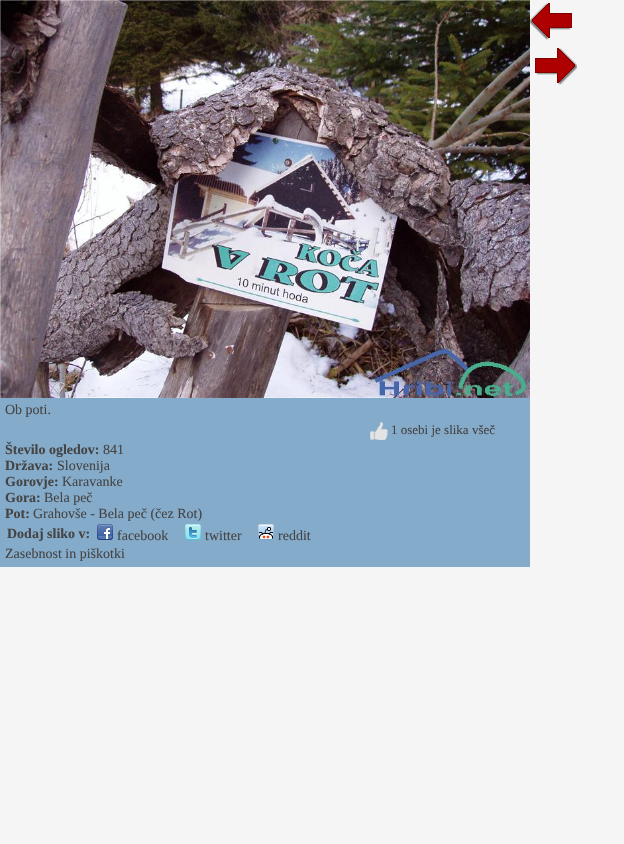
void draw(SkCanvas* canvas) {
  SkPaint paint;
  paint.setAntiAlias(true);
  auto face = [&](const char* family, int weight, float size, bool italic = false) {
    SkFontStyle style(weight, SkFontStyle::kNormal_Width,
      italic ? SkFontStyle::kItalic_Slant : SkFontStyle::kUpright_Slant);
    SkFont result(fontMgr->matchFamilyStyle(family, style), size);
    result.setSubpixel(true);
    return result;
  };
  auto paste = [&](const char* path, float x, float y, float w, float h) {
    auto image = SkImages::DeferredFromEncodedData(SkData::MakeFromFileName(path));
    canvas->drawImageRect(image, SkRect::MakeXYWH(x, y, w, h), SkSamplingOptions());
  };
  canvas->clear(0xfff5f5f5);
  paste("img/1.png", 530, 3, 42, 37);
  paste("img/2.png", 535, 48, 42, 37);
  paint.setColor(0xff85abca);
  canvas->drawRect(SkRect::MakeXYWH(0, 398, 530, 169), paint);
  paste("img/3.png", 0, 0, 530, 398);
  paste("img/4.png", 370, 422, 18, 18);
  paste("img/5.png", 97, 524, 16, 16);
  paste("img/6.png", 185, 524, 16, 16);
  paste("img/7.png", 258, 524, 16, 16);
  auto f0 = face("Liberation Serif", 400, 14);
  paint.setColor(0xff444444);
  canvas->drawString("Ob poti.", 5, 414, f0, paint);
  auto f1 = face("Liberation Serif", 400, 13);
  canvas->drawString("1 osebi je slika všeč", 391, 434, f1, paint);
  auto f2 = face("Liberation Serif", 700, 14);
  canvas->drawString("Število ogledov:", 5, 454, f2, paint);
  canvas->drawString("841", 103, 454, f0, paint);
  canvas->drawString("Država:", 5, 470, f2, paint);
  canvas->drawString("Slovenija", 57, 470, f0, paint);
  canvas->drawString("Gorovje:", 5, 486, f2, paint);
  canvas->drawString("Karavanke", 62, 486, f0, paint);
  canvas->drawString("Gora:", 5, 502, f2, paint);
  canvas->drawString("Bela peč", 44, 502, f0, paint);
  canvas->drawString("Pot:", 5, 518, f2, paint);
  canvas->drawString("Grahovše - Bela peč (čez Rot)", 33, 518, f0, paint);
  canvas->drawString("Dodaj sliko v:", 7, 538, f2, paint);
  {
    const struct { const char* s; float x, y; } items[] = {
      {"facebook", 117, 540},
      {"twitter", 205, 540},
      {"reddit", 278, 540},
      {"Zasebnost in piškotki", 5, 558},
    };
    for (auto [s, x, y] : items) {
      canvas->drawString(s, x, y, f0, paint);
    }
  }
}
